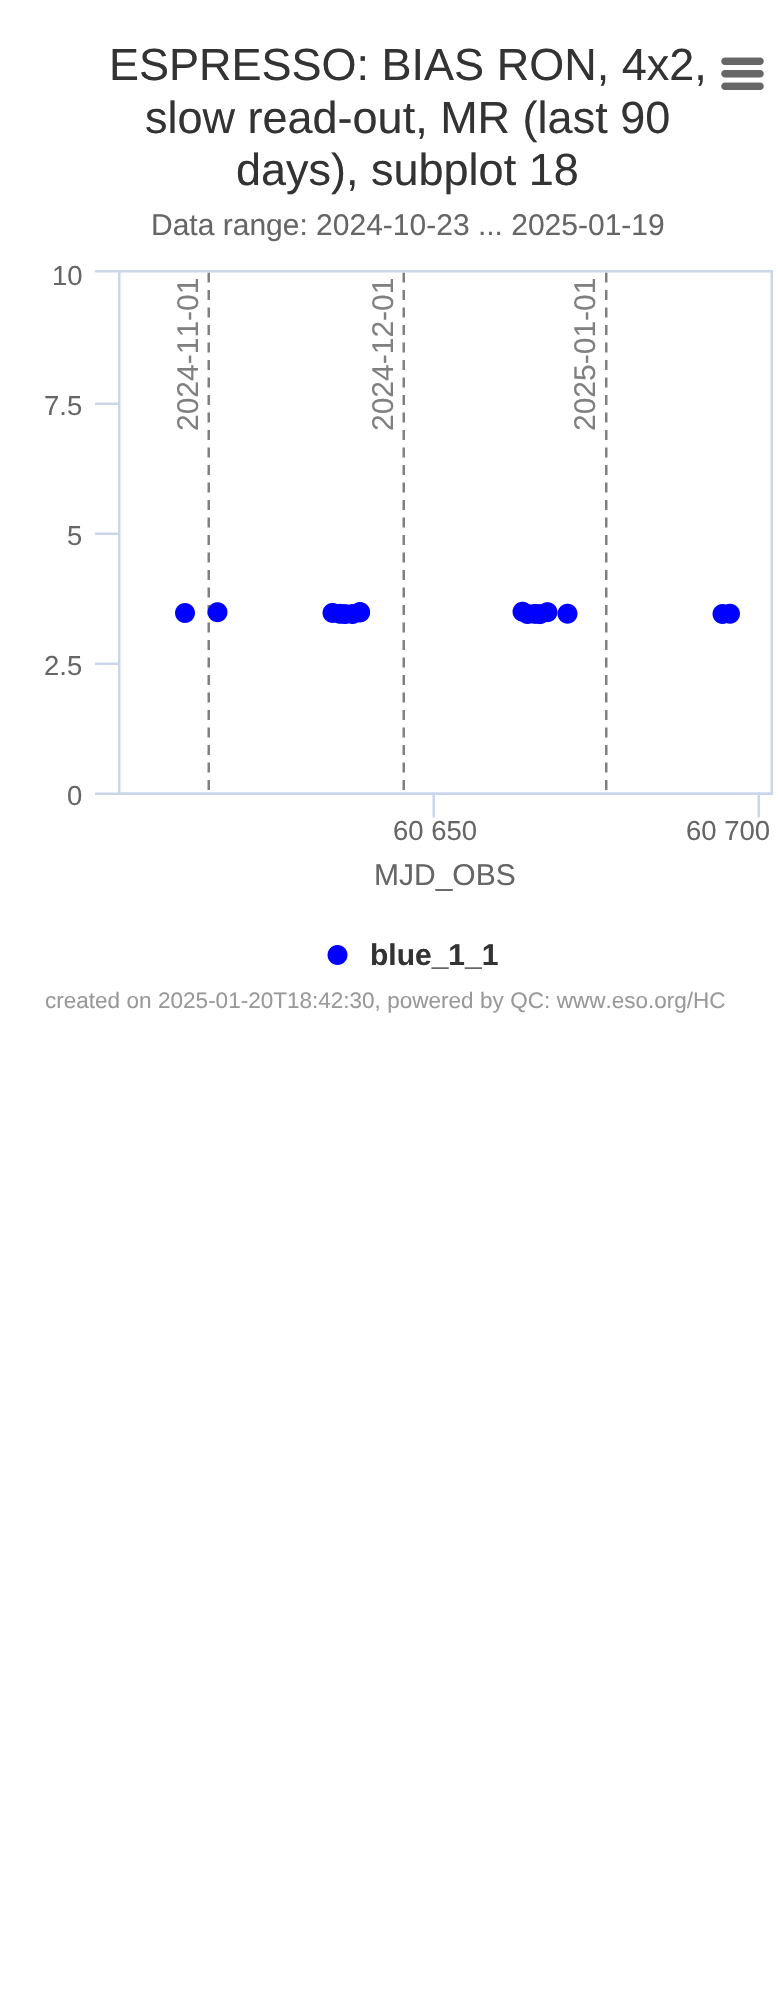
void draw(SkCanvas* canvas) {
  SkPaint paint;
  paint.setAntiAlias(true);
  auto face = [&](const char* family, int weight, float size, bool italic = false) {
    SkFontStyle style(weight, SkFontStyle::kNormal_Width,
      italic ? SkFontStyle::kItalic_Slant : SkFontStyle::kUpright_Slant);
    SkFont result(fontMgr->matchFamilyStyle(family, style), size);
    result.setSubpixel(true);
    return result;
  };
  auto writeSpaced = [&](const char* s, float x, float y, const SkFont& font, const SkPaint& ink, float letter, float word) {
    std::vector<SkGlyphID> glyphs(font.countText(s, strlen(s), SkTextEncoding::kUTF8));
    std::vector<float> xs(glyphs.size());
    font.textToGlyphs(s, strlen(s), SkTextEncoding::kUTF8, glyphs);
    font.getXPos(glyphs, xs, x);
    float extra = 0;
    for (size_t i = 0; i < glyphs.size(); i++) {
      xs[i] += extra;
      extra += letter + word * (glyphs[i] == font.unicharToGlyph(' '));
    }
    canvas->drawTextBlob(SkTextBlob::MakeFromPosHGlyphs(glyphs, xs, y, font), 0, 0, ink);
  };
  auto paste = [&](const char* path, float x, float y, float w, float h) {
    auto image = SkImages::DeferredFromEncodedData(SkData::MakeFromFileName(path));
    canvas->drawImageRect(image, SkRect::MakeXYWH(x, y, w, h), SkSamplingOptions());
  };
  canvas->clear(0xffffffff);
  paste("img/1.png", 95, 57, 678, 908);
  auto f0 = face("Liberation Sans", 400, 45);
  paint.setColor(0xff333333);
  {
    const struct { const char* s; float x, y; } items[] = {
      {"ESPRESSO: BIAS RON, 4x2,", 109, 80},
      {"slow read-out, MR (last 90", 145, 133},
      {"days), subplot 18", 236, 185},
    };
    for (auto [s, x, y] : items) {
      canvas->drawString(s, x, y, f0, paint);
    }
  }
  auto f1 = face("Liberation Sans", 400, 30);
  paint.setColor(0xff666666);
  canvas->drawString("Data range: 2024-10-23 ... 2025-01-19", 151, 235, f1, paint);
  auto f2 = face("Liberation Sans", 400, 27.5f);
  canvas->drawString("10", 52, 285, f2, paint);
  canvas->drawString("7.5", 44, 415, f2, paint);
  paint.setColor(0xff808080);
  canvas->save();
  canvas->rotate(-90, 198, 431);
  canvas->drawString("2024-11-01", 198, 431, f1, paint);
  canvas->restore();
  canvas->save();
  canvas->rotate(-90, 393, 431);
  canvas->drawString("2024-12-01", 393, 431, f1, paint);
  canvas->restore();
  canvas->save();
  canvas->rotate(-90, 595, 431);
  canvas->drawString("2025-01-01", 595, 431, f1, paint);
  canvas->restore();
  paint.setColor(0xff666666);
  {
    const struct { const char* s; float x, y; } items[] = {
      {"5", 67, 545},
      {"2.5", 44, 675},
      {"0", 67, 805},
      {"60 650", 393, 840},
      {"60 700", 686, 840},
    };
    for (auto [s, x, y] : items) {
      canvas->drawString(s, x, y, f2, paint);
    }
  }
  canvas->drawString("MJD_OBS", 374, 885, f1, paint);
  auto f3 = face("Liberation Sans", 700, 30);
  paint.setColor(0xff333333);
  canvas->drawString("blue_1_1", 370, 965, f3, paint);
  auto f4 = face("Liberation Sans", 400, 22.5f);
  paint.setColor(0xff999999);
  writeSpaced("created on 2025-01-20T18:42:30, powered by QC: www.eso.org/HC", 45, 1008, f4, paint, 0, 0.25f);
}
